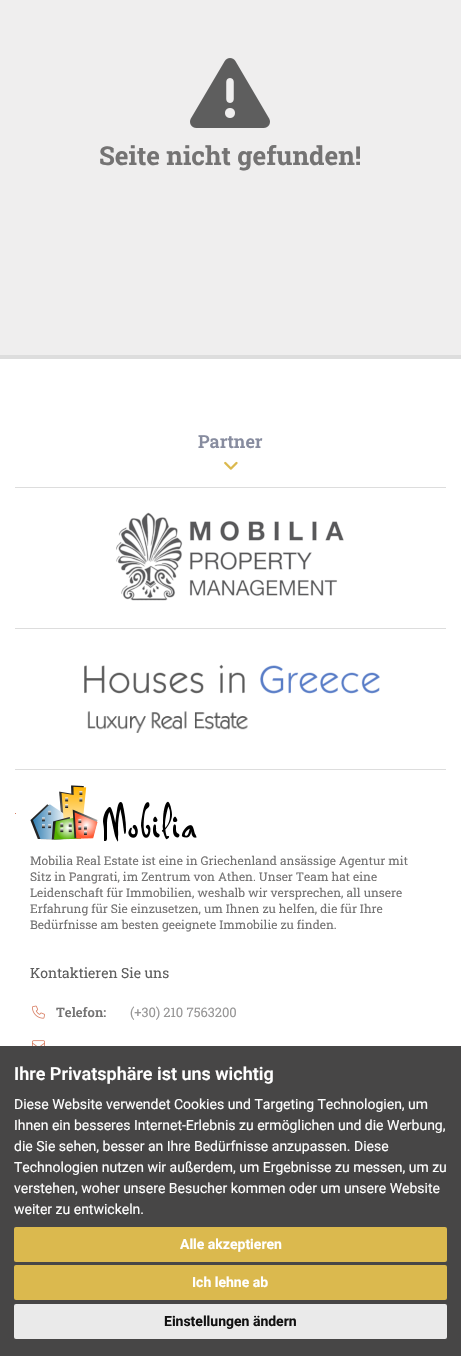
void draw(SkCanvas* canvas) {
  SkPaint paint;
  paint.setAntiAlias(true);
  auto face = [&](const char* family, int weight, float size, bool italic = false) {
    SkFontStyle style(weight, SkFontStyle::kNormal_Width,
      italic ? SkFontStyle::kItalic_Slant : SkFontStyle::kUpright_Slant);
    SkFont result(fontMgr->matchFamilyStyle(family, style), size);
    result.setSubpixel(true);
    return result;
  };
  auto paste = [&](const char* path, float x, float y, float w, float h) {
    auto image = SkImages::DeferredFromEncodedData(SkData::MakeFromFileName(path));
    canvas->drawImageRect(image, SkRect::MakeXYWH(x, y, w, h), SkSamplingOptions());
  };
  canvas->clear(0xffffffff);
  paint.setColor(0xffefeeee);
  canvas->drawRect(SkRect::MakeXYWH(0, 0, 461, 355), paint);
  paste("img/1.png", 190, 58, 80, 70);
  paint.setColor(0xffdddddd);
  canvas->drawRect(SkRect::MakeXYWH(0, 355, 461, 4), paint);
  paste("img/2.png", 224, 461, 14, 9);
  canvas->drawRect(SkRect::MakeXYWH(15, 487, 431, 1), paint);
  paste("img/3.png", 116, 512, 228, 89);
  canvas->drawRect(SkRect::MakeXYWH(15, 628, 431, 1), paint);
  canvas->drawRect(SkRect::MakeXYWH(15, 769, 431, 1), paint);
  paste("img/4.png", 84, 664, 296, 69);
  paint.setColor(0xffd87f64);
  canvas->drawRect(SkRect::MakeXYWH(15, 813, 1, 1), paint);
  paste("img/5.png", 30, 785, 167, 57);
  paste("img/6.png", 32, 1005, 13, 14);
  paste("img/7.png", 32, 1040, 13, 6);
  paint.setColor(0xff474646);
  canvas->drawRect(SkRect::MakeXYWH(0, 1046, 461, 310), paint);
  paint.setColor(0xffdbb94e);
  canvas->drawRoundRect(SkRect::MakeXYWH(14, 1227, 433, 35), 2, 2, paint);
  canvas->drawRoundRect(SkRect::MakeXYWH(14, 1265, 433, 35), 2, 2, paint);
  paint.setColor(0xffeaeaea);
  canvas->drawRoundRect(SkRect::MakeXYWH(14, 1304, 433, 35), 2, 2, paint);
  auto f0 = face("Roboto Slab", 700, 26);
  paint.setColor(0xff747373);
  canvas->drawString("Seite nicht gefunden!", 99, 165, f0, paint);
  auto f1 = face("Roboto Slab", 600, 18);
  paint.setColor(0xff878c9f);
  canvas->drawString("Partner", 198, 448, f1, paint);
  auto f2 = face("Roboto Slab", 400, 12);
  paint.setColor(0xff747373);
  {
    const struct { const char* s; float x, y; } items[] = {
      {"Mobilia Real Estate ist eine in Griechenland ansässige Agentur mit", 30, 865},
      {"Sitz in Pangrati, im Zentrum von Athen. Unser Team hat eine", 30, 881},
      {"Leidenschaft für Immobilien, weshalb wir versprechen, all unsere", 30, 897},
      {"Erfahrung für Sie einzusetzen, um Ihnen zu helfen, die für Ihre", 30, 913},
      {"Bedürfnisse am besten geeignete Immobilie zu finden.", 30, 929},
    };
    for (auto [s, x, y] : items) {
      canvas->drawString(s, x, y, f2, paint);
    }
  }
  auto f3 = face("Roboto Slab", 400, 14);
  paint.setColor(0xff5e5e5e);
  canvas->drawString("Kontaktieren Sie uns", 30, 978, f3, paint);
  auto f4 = face("Roboto Slab", 600, 13);
  paint.setColor(0xff747373);
  canvas->drawString("Telefon:", 56, 1017, f4, paint);
  auto f5 = face("Roboto Slab", 400, 13);
  paint.setColor(0xff979696);
  canvas->drawString("(+30) 210 7563200", 130, 1017, f5, paint);
  auto f6 = face("Roboto", 600, 18);
  paint.setColor(0xffffffff);
  canvas->drawString("Ihre Privatsphäre ist uns wichtig", 14, 1080, f6, paint);
  auto f7 = face("Roboto", 400, 14);
  {
    const struct { const char* s; float x, y; } items[] = {
      {"Diese Website verwendet Cookies und Targeting Technologien, um", 14, 1109},
      {"Ihnen ein besseres Internet-Erlebnis zu ermöglichen und die Werbung,", 14, 1130},
      {"die Sie sehen, besser an Ihre Bedürfnisse anzupassen. Diese", 14, 1151},
      {"Technologien nutzen wir außerdem, um Ergebnisse zu messen, um zu", 14, 1172},
      {"verstehen, woher unsere Besucher kommen oder um unsere Website", 14, 1193},
      {"weiter zu entwickeln.", 14, 1214},
    };
    for (auto [s, x, y] : items) {
      canvas->drawString(s, x, y, f7, paint);
    }
  }
  auto f8 = face("Roboto", 700, 14);
  canvas->drawString("Alle akzeptieren", 180, 1249, f8, paint);
  canvas->drawString("Ich lehne ab", 192, 1287, f8, paint);
  paint.setColor(0xff111111);
  canvas->drawString("Einstellungen ändern", 164, 1326, f8, paint);
}
